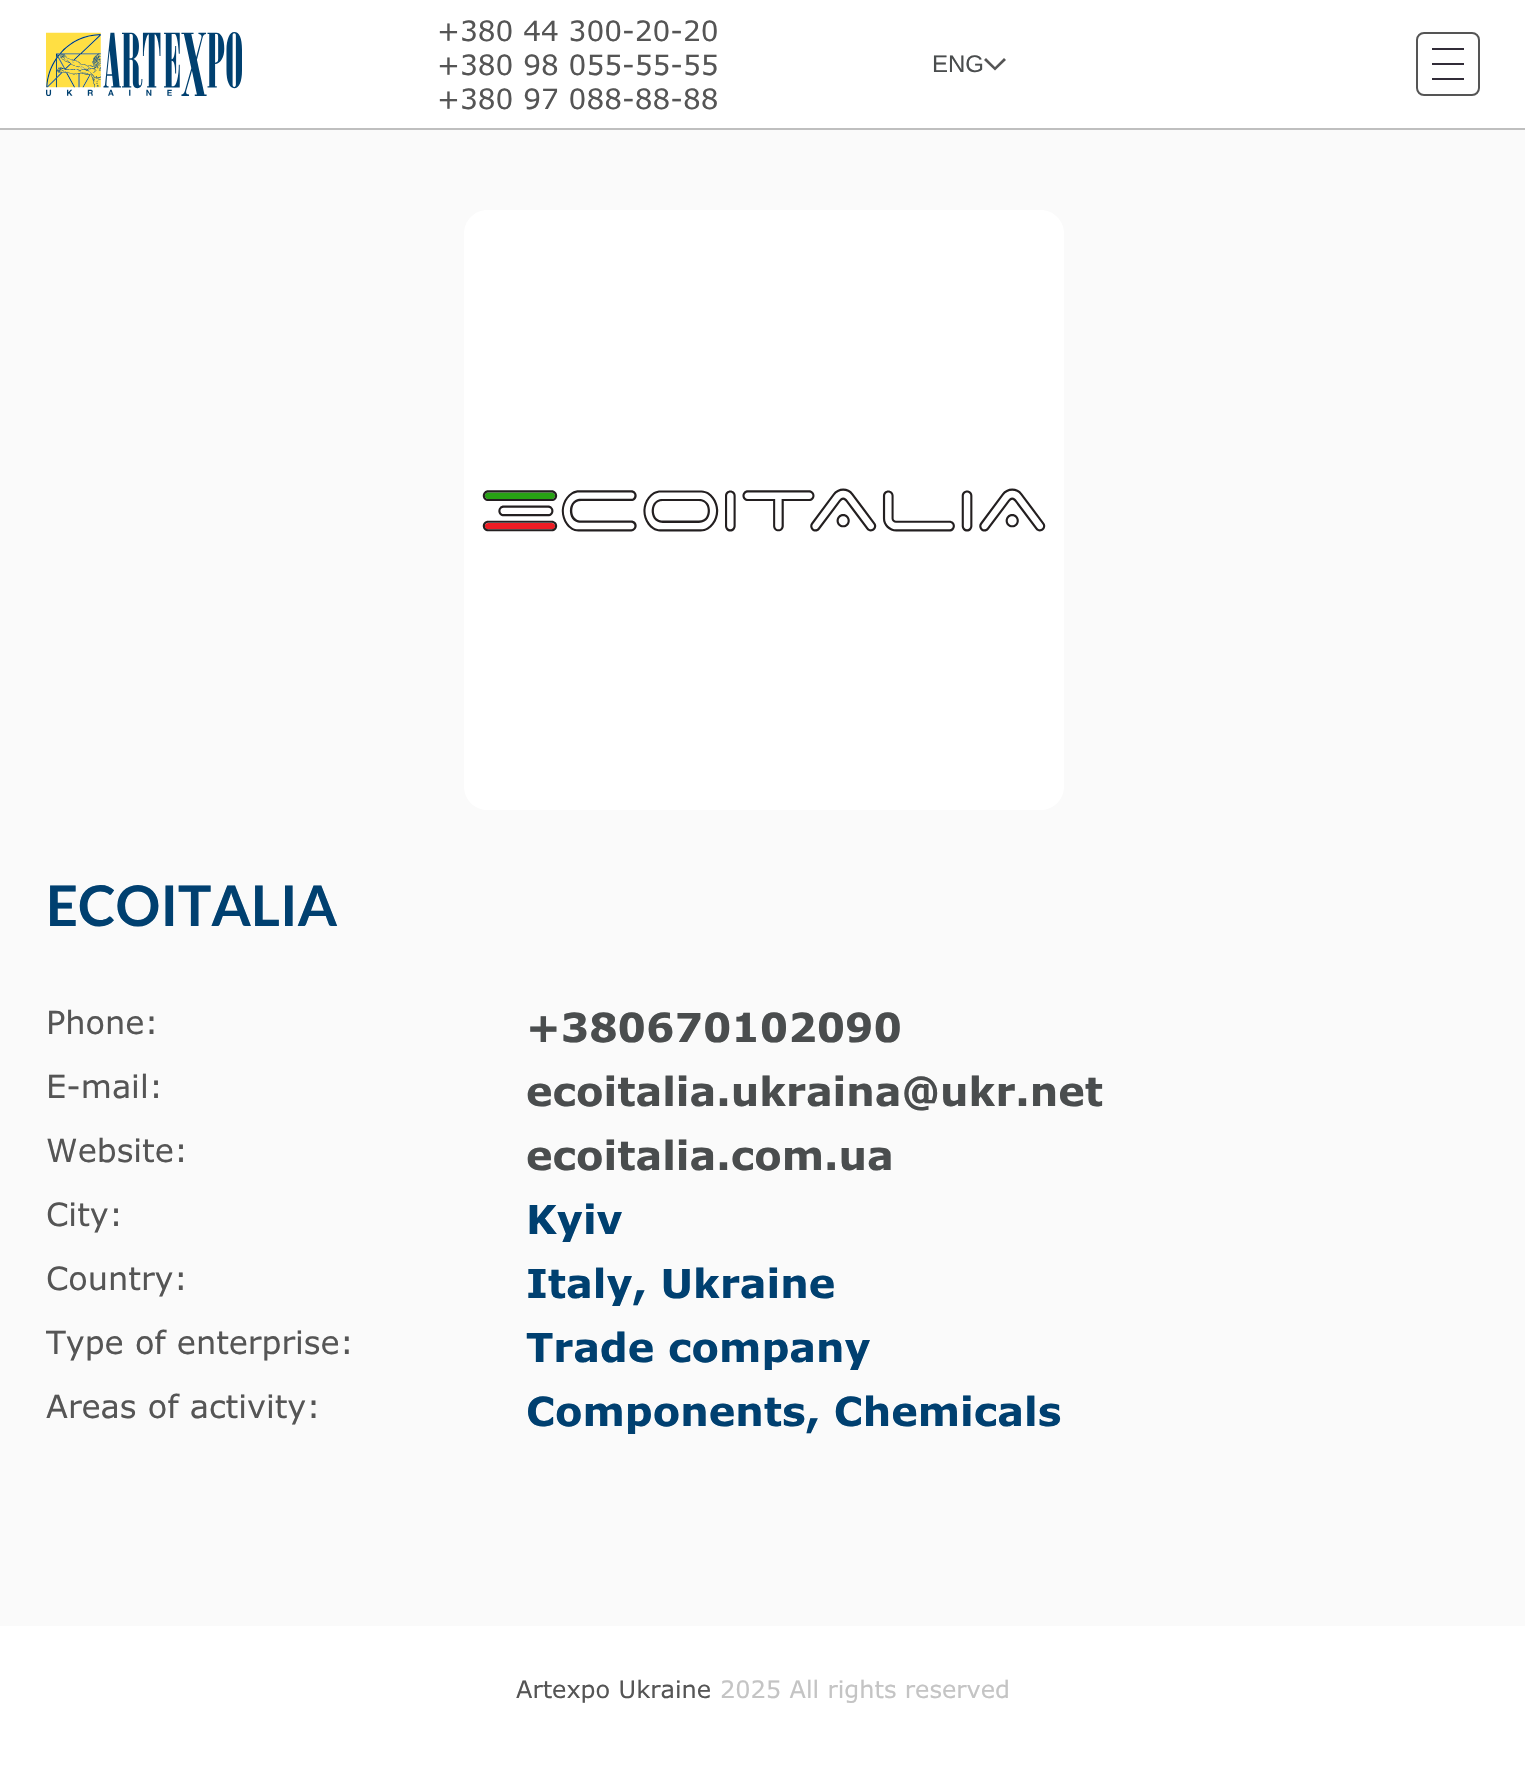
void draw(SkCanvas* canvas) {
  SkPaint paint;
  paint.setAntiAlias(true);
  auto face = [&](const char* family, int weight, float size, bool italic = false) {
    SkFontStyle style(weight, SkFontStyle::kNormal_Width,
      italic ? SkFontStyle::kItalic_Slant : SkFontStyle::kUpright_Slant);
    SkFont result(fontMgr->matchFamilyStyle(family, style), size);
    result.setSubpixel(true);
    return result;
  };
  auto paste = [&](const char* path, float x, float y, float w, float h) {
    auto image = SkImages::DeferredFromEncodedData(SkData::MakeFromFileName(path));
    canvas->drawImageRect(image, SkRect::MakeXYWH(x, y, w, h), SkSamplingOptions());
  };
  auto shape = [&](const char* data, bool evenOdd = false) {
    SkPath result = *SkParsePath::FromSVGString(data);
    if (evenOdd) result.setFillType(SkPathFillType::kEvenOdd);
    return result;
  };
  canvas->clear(0xfffafafa);
  paint.setColor(0xffffffff);
  canvas->drawRect(SkRect::MakeXYWH(0, 0, 1525, 128), paint);
  paint.setColor(0xffbfbfbf);
  canvas->drawRect(SkRect::MakeXYWH(0, 128, 1525, 2), paint);
  paste("img/1.png", 46, 32, 196, 64);
  paint.setColor(0xff555555);
  canvas->drawPath(shape("M995 67L986 58L984 60L995 70.5L1006 60L1004 58Z", true), paint);
  paint.setStroke(true);
  paint.setStrokeWidth(2);
  canvas->drawRoundRect(SkRect::MakeXYWH(1417, 33, 62, 62), 7, 7, paint);
  paint.setStroke(false);
  {
    const struct { float x, y, w, h; SkColor color; } items[] = {
      {1432, 48, 32, 2, 0xff312c38},
      {1432, 78, 32, 2, 0xff312c38},
      {1432, 63, 32, 2, 0xff312c38},
    };
    for (auto [x, y, w, h, color] : items) {
      paint.setColor(color);
      canvas->drawRect(SkRect::MakeXYWH(x, y, w, h), paint);
    }
  }
  paste("img/2.png", 464, 210, 600, 600);
  paint.setColor(0xffffffff);
  canvas->drawRect(SkRect::MakeXYWH(0, 1626, 1525, 146), paint);
  auto f0 = face("Verdana", 400, 28);
  paint.setColor(0xff555555);
  {
    const struct { const char* s; float x, y; } items[] = {
      {"+380 44 300-20-20", 437, 41},
      {"+380 98 055-55-55", 437, 75},
      {"+380 97 088-88-88", 437, 109},
    };
    for (auto [s, x, y] : items) {
      canvas->drawString(s, x, y, f0, paint);
    }
  }
  auto f1 = face("Liberation Sans", 400, 24);
  paint.setColor(0xff4a4d4e);
  canvas->drawString("ENG", 932, 72, f1, paint);
  auto f2 = face("Lato", 700, 56);
  paint.setColor(0xff004070);
  canvas->drawString("ECOITALIA", 46, 926, f2, paint);
  auto f3 = face("Verdana", 400, 32);
  paint.setColor(0xff555555);
  canvas->drawString("Phone:", 46, 1034, f3, paint);
  auto f4 = face("Verdana", 700, 40);
  paint.setColor(0xff4a4d4e);
  canvas->drawString("+380670102090", 526, 1042, f4, paint);
  paint.setColor(0xff555555);
  canvas->drawString("E-mail:", 46, 1098, f3, paint);
  paint.setColor(0xff4a4d4e);
  canvas->drawString("ecoitalia.ukraina@ukr.net", 526, 1106, f4, paint);
  paint.setColor(0xff555555);
  canvas->drawString("Website:", 46, 1162, f3, paint);
  paint.setColor(0xff4a4d4e);
  canvas->drawString("ecoitalia.com.ua", 526, 1170, f4, paint);
  paint.setColor(0xff555555);
  canvas->drawString("City:", 46, 1226, f3, paint);
  paint.setColor(0xff004070);
  canvas->drawString("Kyiv", 526, 1234, f4, paint);
  paint.setColor(0xff555555);
  canvas->drawString("Country:", 46, 1290, f3, paint);
  paint.setColor(0xff004070);
  canvas->drawString("Italy, Ukraine", 526, 1298, f4, paint);
  paint.setColor(0xff555555);
  canvas->drawString("Type of enterprise:", 46, 1354, f3, paint);
  paint.setColor(0xff004070);
  canvas->drawString("Trade company", 526, 1362, f4, paint);
  paint.setColor(0xff555555);
  canvas->drawString("Areas of activity:", 46, 1418, f3, paint);
  paint.setColor(0xff004070);
  canvas->drawString("Components, Chemicals", 526, 1426, f4, paint);
  auto f5 = face("Verdana", 400, 24);
  paint.setColor(0xff555555);
  canvas->drawString("Artexpo Ukraine", 516, 1698, f5, paint);
  paint.setColor(0xffc4c4c4);
  canvas->drawString("2025 All rights reserved", 720, 1698, f5, paint);
}
